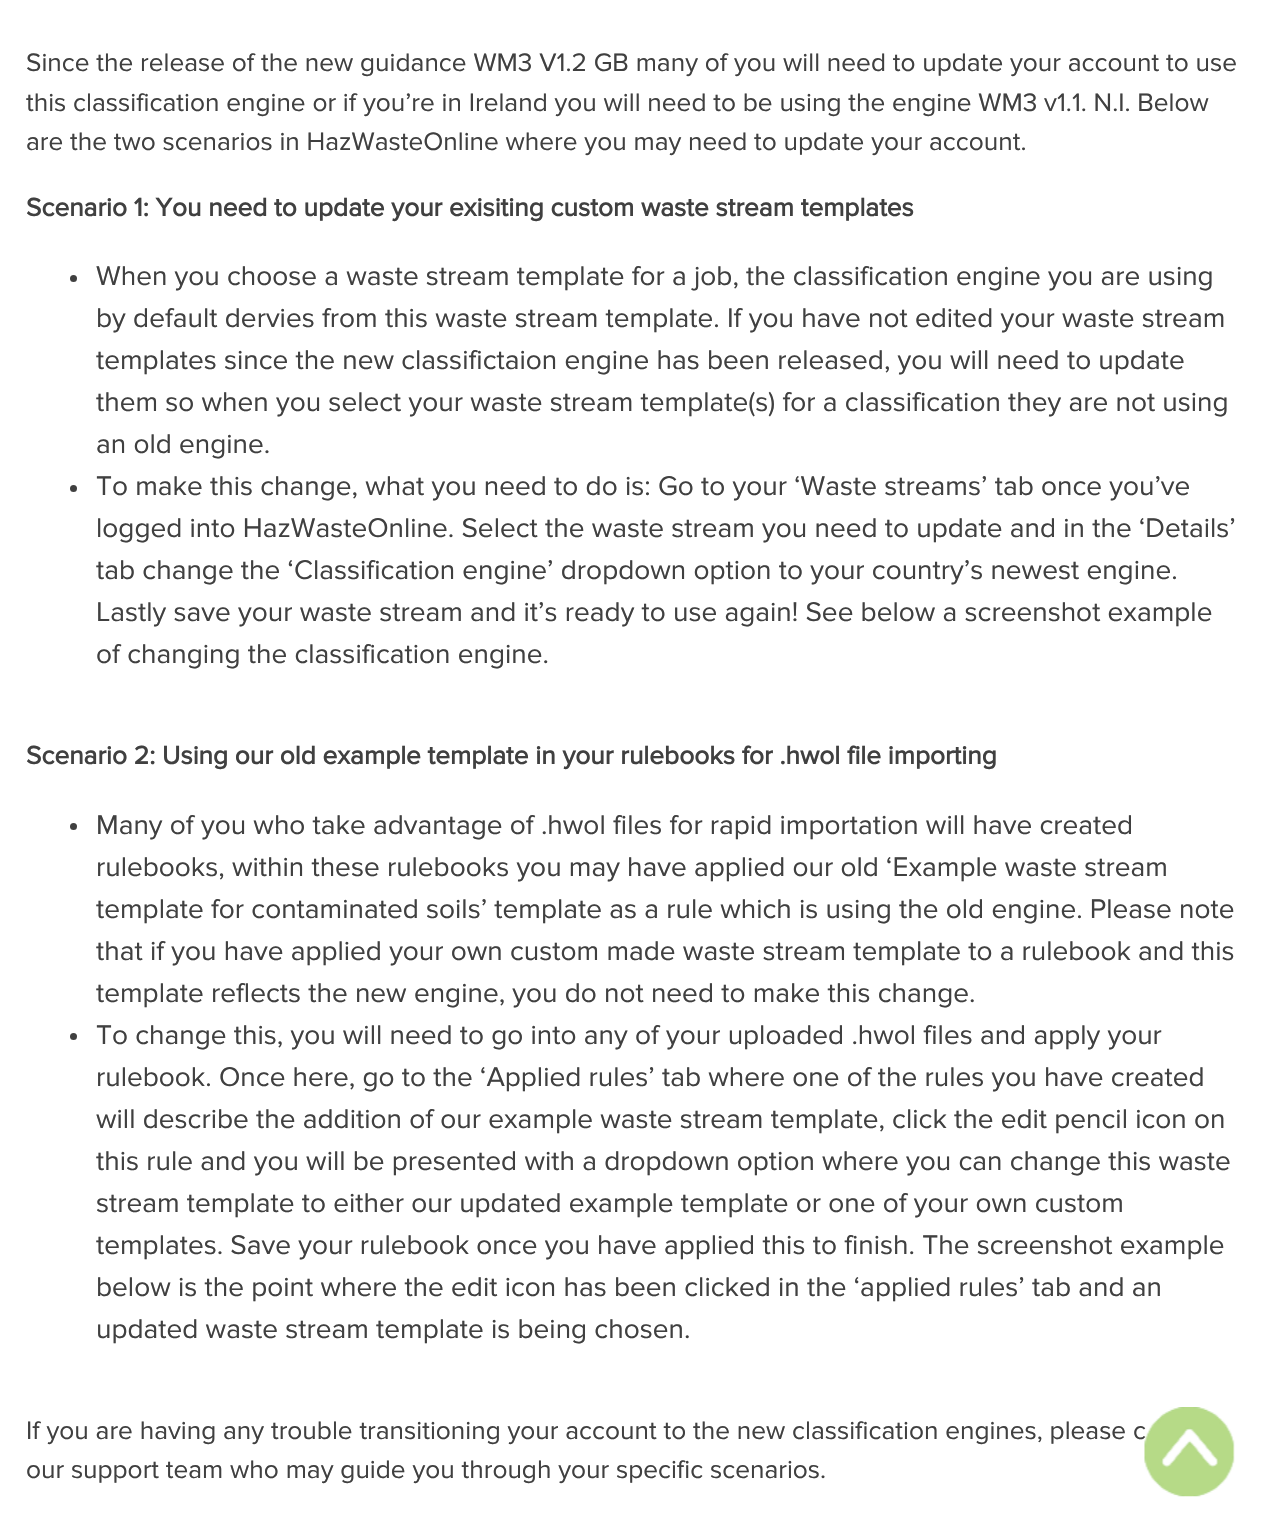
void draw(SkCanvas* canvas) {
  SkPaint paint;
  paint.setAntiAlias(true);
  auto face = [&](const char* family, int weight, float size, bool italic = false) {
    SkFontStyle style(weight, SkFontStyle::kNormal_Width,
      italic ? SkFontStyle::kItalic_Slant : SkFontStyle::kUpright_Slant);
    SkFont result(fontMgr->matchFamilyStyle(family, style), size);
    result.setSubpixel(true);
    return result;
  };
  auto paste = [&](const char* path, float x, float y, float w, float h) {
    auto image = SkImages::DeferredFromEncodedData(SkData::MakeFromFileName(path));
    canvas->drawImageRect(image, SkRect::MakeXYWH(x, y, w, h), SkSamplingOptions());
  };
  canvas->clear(0xffffffff);
  paint.setColor(0xff404040);
  canvas->drawCircle(73.5f, 278.5f, 3.5f, paint);
  canvas->drawCircle(73.5f, 488.5f, 3.5f, paint);
  canvas->drawCircle(73.5f, 826.5f, 3.5f, paint);
  canvas->drawCircle(73.5f, 1036.5f, 3.5f, paint);
  auto f0 = face("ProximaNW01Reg", 400, 26.25f);
  {
    const struct { const char* s; float x, y; } items[] = {
      {"Since the release of the new guidance WM3 V1.2 GB many of you will need to update your account to use", 26, 71},
      {"this classification engine or if you’re in Ireland you will need to be using the engine WM3 v1.1. N.I. Below", 26, 111},
      {"are the two scenarios in HazWasteOnline where you may need to update your account.", 26, 150},
    };
    for (auto [s, x, y] : items) {
      canvas->drawString(s, x, y, f0, paint);
    }
  }
  auto f1 = face("ProximaNW01Reg", 700, 26.25f);
  canvas->drawString("Scenario 1: You need to update your exisiting custom waste stream templates", 26, 216, f1, paint);
  auto f2 = face("ProximaNW01Reg", 400, 28);
  {
    const struct { const char* s; float x, y; } items[] = {
      {"When you choose a waste stream template for a job, the classification engine you are using", 96, 285},
      {"by default dervies from this waste stream template. If you have not edited your waste stream", 96, 327},
      {"templates since the new classifictaion engine has been released, you will need to update", 96, 369},
      {"them so when you select your waste stream template(s) for a classification they are not using", 96, 411},
      {"an old engine.", 96, 453},
      {"To make this change, what you need to do is: Go to your ‘Waste streams’ tab once you’ve", 96, 495},
      {"logged into HazWasteOnline. Select the waste stream you need to update and in the ‘Details’", 96, 537},
      {"tab change the ‘Classification engine’ dropdown option to your country’s newest engine.", 96, 579},
      {"Lastly save your waste stream and it’s ready to use again! See below a screenshot example", 96, 621},
      {"of changing the classification engine.", 96, 663},
    };
    for (auto [s, x, y] : items) {
      canvas->drawString(s, x, y, f2, paint);
    }
  }
  canvas->drawString("Scenario 2: Using our old example template in your rulebooks for .hwol file importing", 26, 764, f1, paint);
  {
    const struct { const char* s; float x, y; } items[] = {
      {"Many of you who take advantage of .hwol files for rapid importation will have created", 96, 834},
      {"rulebooks, within these rulebooks you may have applied our old ‘Example waste stream", 96, 876},
      {"template for contaminated soils’ template as a rule which is using the old engine. Please note", 96, 918},
      {"that if you have applied your own custom made waste stream template to a rulebook and this", 96, 960},
      {"template reflects the new engine, you do not need to make this change.", 96, 1002},
      {"To change this, you will need to go into any of your uploaded .hwol files and apply your", 96, 1044},
      {"rulebook. Once here, go to the ‘Applied rules’ tab where one of the rules you have created", 96, 1086},
      {"will describe the addition of our example waste stream template, click the edit pencil icon on", 96, 1128},
      {"this rule and you will be presented with a dropdown option where you can change this waste", 96, 1170},
      {"stream template to either our updated example template or one of your own custom", 96, 1212},
      {"templates. Save your rulebook once you have applied this to finish. The screenshot example", 96, 1254},
      {"below is the point where the edit icon has been clicked in the ‘applied rules’ tab and an", 96, 1296},
      {"updated waste stream template is being chosen.", 96, 1338},
    };
    for (auto [s, x, y] : items) {
      canvas->drawString(s, x, y, f2, paint);
    }
  }
  canvas->drawString("If you are having any trouble transitioning your account to the new classification engines, please c", 26, 1439, f0, paint);
  canvas->drawString("our support team who may guide you through your specific scenarios.", 26, 1478, f0, paint);
  paste("img/1.png", 1144, 1407, 91, 90);
}
